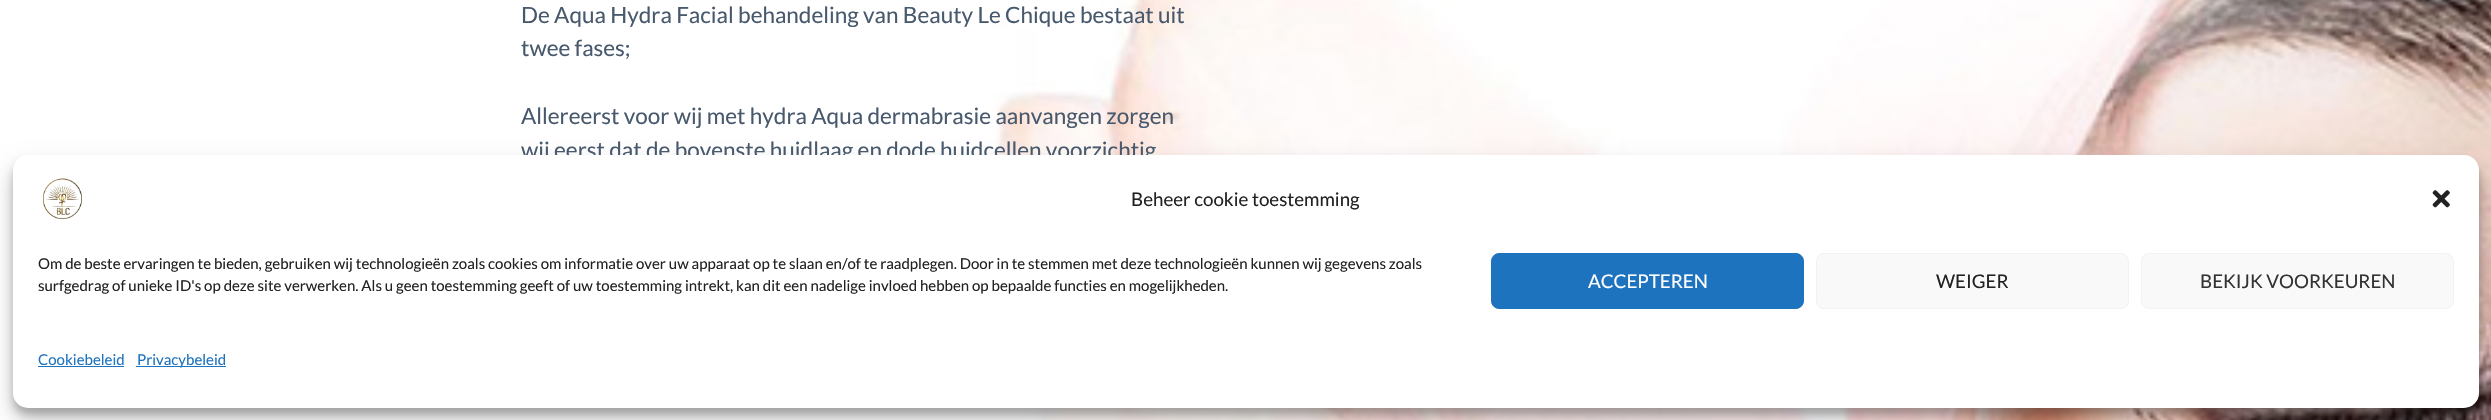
void draw(SkCanvas* canvas) {
  SkPaint paint;
  paint.setAntiAlias(true);
  auto face = [&](const char* family, int weight, float size, bool italic = false) {
    SkFontStyle style(weight, SkFontStyle::kNormal_Width,
      italic ? SkFontStyle::kItalic_Slant : SkFontStyle::kUpright_Slant);
    SkFont result(fontMgr->matchFamilyStyle(family, style), size);
    result.setSubpixel(true);
    return result;
  };
  auto paste = [&](const char* path, float x, float y, float w, float h) {
    auto image = SkImages::DeferredFromEncodedData(SkData::MakeFromFileName(path));
    canvas->drawImageRect(image, SkRect::MakeXYWH(x, y, w, h), SkSamplingOptions());
  };
  canvas->clear(0xffffffff);
  paste("img/1.png", 991, 0, 1500, 420);
  paint.setColor(0x3b000000);
  paint.setMaskFilter(SkMaskFilter::MakeBlur(kNormal_SkBlurStyle, 4));
  canvas->drawRoundRect(SkRect::MakeXYWH(13, 163, 2466, 252), 15, 15, paint);
  paint.setMaskFilter(nullptr);
  paint.setColor(0x30000000);
  paint.setMaskFilter(SkMaskFilter::MakeBlur(kNormal_SkBlurStyle, 12.5f));
  canvas->drawRoundRect(SkRect::MakeXYWH(13, 168, 2466, 252), 15, 15, paint);
  paint.setMaskFilter(nullptr);
  auto f0 = face("Lato", 400, 22.5f);
  paint.setColor(0xff48596d);
  {
    const struct { const char* s; float x, y; } items[] = {
      {"De Aqua Hydra Facial behandeling van Beauty Le Chique bestaat uit", 521, 23},
      {"twee fases;", 521, 56},
      {"Allereerst voor wij met hydra Aqua dermabrasie aanvangen zorgen", 521, 124},
      {"wij eerst dat de bovenste huidlaag en dode huidcellen voorzichtig", 521, 158},
    };
    for (auto [s, x, y] : items) {
      canvas->drawString(s, x, y, f0, paint);
    }
  }
  paint.setColor(0xffffffff);
  canvas->drawRoundRect(SkRect::MakeXYWH(13, 155, 2466, 253), 15, 15, paint);
  paste("img/2.png", 43, 178, 39, 42);
  auto f1 = face("Lato", 400, 18.75f);
  paint.setColor(0xff222222);
  canvas->drawString("Beheer cookie toestemming", 1131, 206, f1, paint);
  paste("img/3.png", 2432, 190, 18, 18);
  auto f2 = face("Lato", 400, 15);
  canvas->drawString("Om de beste ervaringen te bieden, gebruiken wij technologieën zoals cookies om informatie over uw apparaat op te slaan en/of te raadplegen. Door in te stemmen met deze technologieën kunnen wij gegevens zoals", 38, 269, f2, paint);
  canvas->drawString("surfgedrag of unieke ID's op deze site verwerken. Als u geen toestemming geeft of uw toestemming intrekt, kan dit een nadelige invloed hebben op bepaalde functies en mogelijkheden.", 38, 291, f2, paint);
  paint.setColor(0xff1e73be);
  canvas->drawRoundRect(SkRect::MakeXYWH(1491.5f, 253.5f, 312, 55), 7.5f, 7.5f, paint);
  paint.setStroke(true);
  paint.setStrokeWidth(1);
  canvas->drawRoundRect(SkRect::MakeXYWH(1491.5f, 253.5f, 312, 55), 7.5f, 7.5f, paint);
  paint.setStroke(false);
  paint.setColor(0xffffffff);
  canvas->drawString("ACCEPTEREN", 1588, 288, f1, paint);
  paint.setColor(0xfff9f9f9);
  canvas->drawRoundRect(SkRect::MakeXYWH(1816.5f, 253.5f, 312, 55), 7.5f, 7.5f, paint);
  paint.setStroke(true);
  paint.setColor(0xfff2f2f2);
  canvas->drawRoundRect(SkRect::MakeXYWH(1816.5f, 253.5f, 312, 55), 7.5f, 7.5f, paint);
  paint.setStroke(false);
  paint.setColor(0xff222222);
  canvas->drawString("WEIGER", 1936, 288, f1, paint);
  paint.setColor(0xfff9f9f9);
  canvas->drawRoundRect(SkRect::MakeXYWH(2141.5f, 253.5f, 312, 55), 7.5f, 7.5f, paint);
  paint.setStroke(true);
  paint.setColor(0xfff2f2f2);
  canvas->drawRoundRect(SkRect::MakeXYWH(2141.5f, 253.5f, 312, 55), 7.5f, 7.5f, paint);
  paint.setStroke(false);
  paint.setColor(0xff333333);
  canvas->drawString("BEKIJK VOORKEUREN", 2200, 288, f1, paint);
  paint.setColor(0xff1e73be);
  canvas->drawString("Cookiebeleid", 38, 365, f2, paint);
  canvas->drawRect(SkRect::MakeXYWH(38, 366, 86, 1), paint);
  canvas->drawRect(SkRect::MakeXYWH(136, 366, 90, 1), paint);
  canvas->drawString("Privacybeleid", 137, 365, f2, paint);
}
